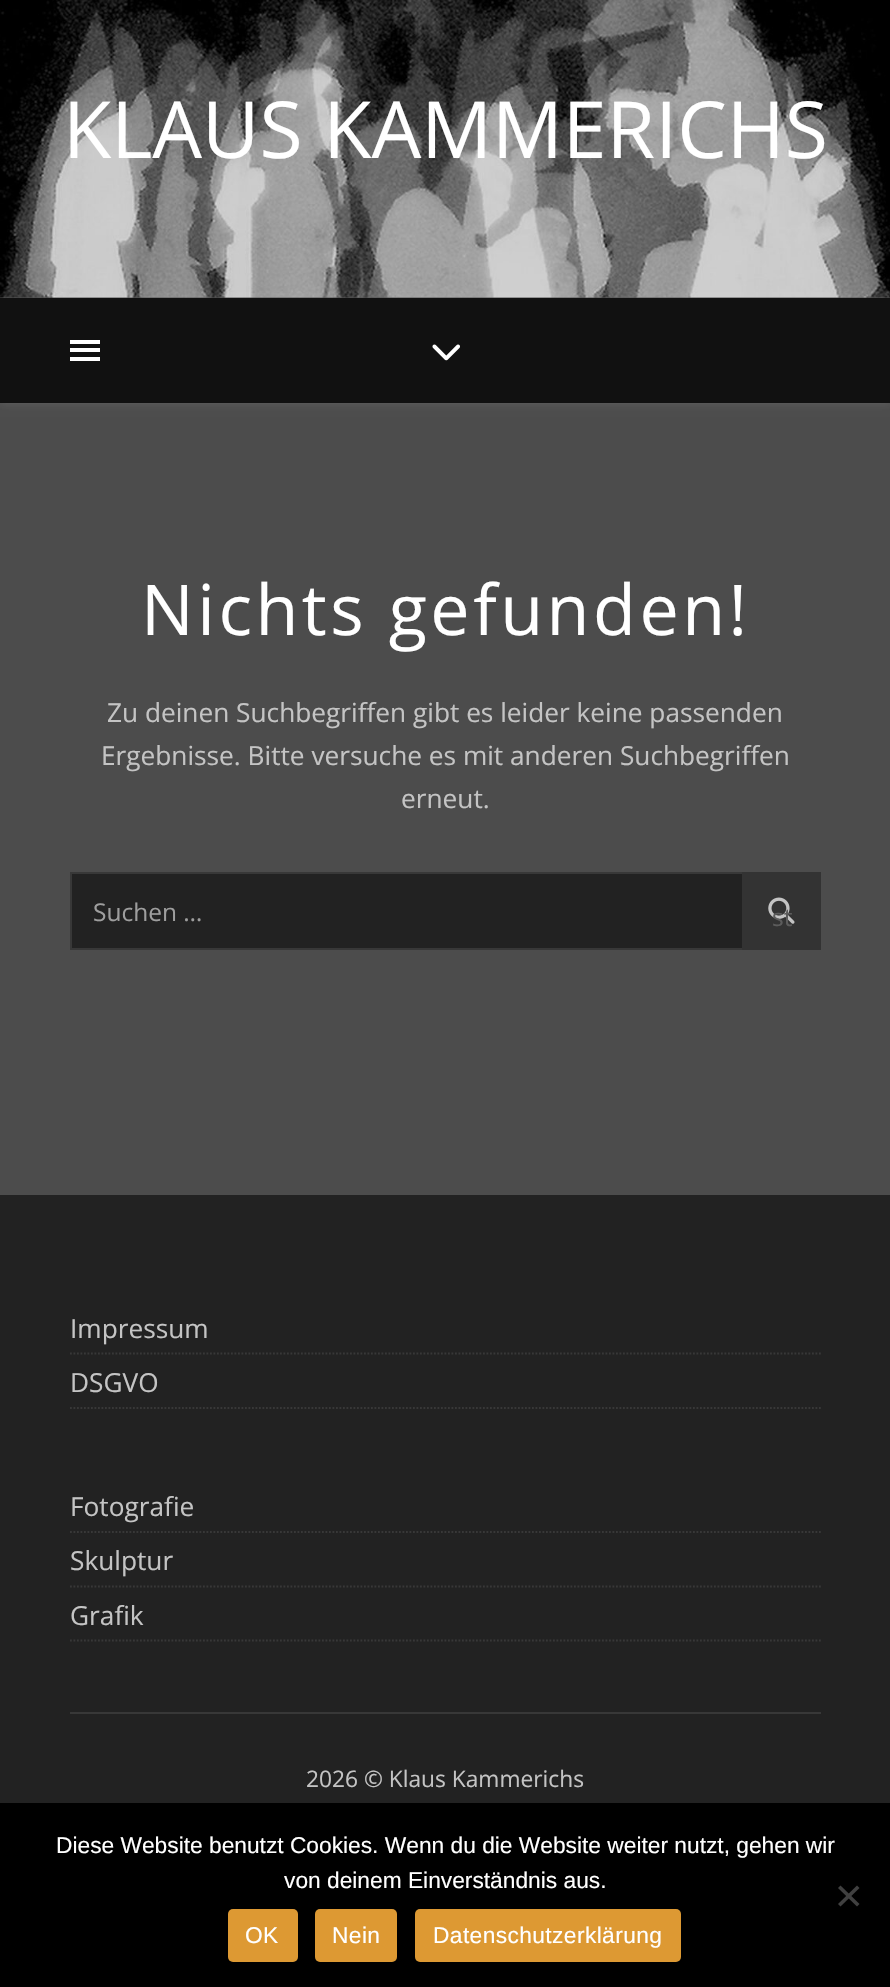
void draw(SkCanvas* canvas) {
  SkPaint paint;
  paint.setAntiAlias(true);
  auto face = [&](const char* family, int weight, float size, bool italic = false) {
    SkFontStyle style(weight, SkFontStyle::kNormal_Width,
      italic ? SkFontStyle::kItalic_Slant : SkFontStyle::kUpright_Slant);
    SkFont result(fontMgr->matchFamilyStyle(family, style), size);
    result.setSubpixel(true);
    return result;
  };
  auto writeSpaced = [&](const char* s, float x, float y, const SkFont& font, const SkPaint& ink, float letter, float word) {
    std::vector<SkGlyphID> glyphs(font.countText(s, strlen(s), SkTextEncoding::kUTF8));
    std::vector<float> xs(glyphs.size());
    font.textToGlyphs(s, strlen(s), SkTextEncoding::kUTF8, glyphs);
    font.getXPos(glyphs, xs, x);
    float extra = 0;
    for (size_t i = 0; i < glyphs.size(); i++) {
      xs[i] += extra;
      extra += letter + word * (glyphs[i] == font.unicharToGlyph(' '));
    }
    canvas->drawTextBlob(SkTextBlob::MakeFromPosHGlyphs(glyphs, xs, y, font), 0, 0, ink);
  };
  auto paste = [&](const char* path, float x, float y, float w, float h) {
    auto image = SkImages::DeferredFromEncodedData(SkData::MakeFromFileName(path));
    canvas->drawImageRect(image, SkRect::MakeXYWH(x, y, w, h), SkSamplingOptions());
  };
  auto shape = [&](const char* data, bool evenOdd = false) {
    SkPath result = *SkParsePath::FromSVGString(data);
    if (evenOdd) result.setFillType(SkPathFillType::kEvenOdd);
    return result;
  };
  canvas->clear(0xff222222);
  paint.setColor(0xff4c4c4c);
  canvas->drawRect(SkRect::MakeXYWH(0, 297, 890, 1), paint);
  paste("img/1.png", 0, 0, 890, 298);
  canvas->drawRect(SkRect::MakeXYWH(0, 403, 890, 792), paint);
  paint.setColor(0x1affffff);
  paint.setMaskFilter(SkMaskFilter::MakeBlur(kNormal_SkBlurStyle, 4.5f));
  canvas->drawRect(SkRect::MakeXYWH(0, 299, 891, 105), paint);
  paint.setMaskFilter(nullptr);
  {
    const struct { float x, y, w, h; SkColor color; } items[] = {
      {0, 298, 890, 105, 0xff111111},
      {70, 340, 30, 4, 0xffffffff},
      {70, 348, 30, 4, 0xffffffff},
      {70, 357, 30, 4, 0xffffffff},
    };
    for (auto [x, y, w, h, color] : items) {
      paint.setColor(color);
      canvas->drawRect(SkRect::MakeXYWH(x, y, w, h), paint);
    }
  }
  paste("img/2.png", 432, 344, 28, 17);
  paint.setColor(0xff222222);
  canvas->drawRect(SkRect::MakeXYWH(72, 874, 670, 74), paint);
  paint.setStroke(true);
  paint.setStrokeWidth(2);
  paint.setColor(0xff383838);
  canvas->drawRect(SkRect::MakeXYWH(71, 873, 749, 76), paint);
  paint.setStroke(false);
  paint.setColor(0xff333333);
  canvas->drawRect(SkRect::MakeXYWH(742, 872, 79, 78), paint);
  paste("img/3.png", 768, 897, 27, 27);
  paint.setColor(0xff383838);
  canvas->drawRect(SkRect::MakeXYWH(70, 1712, 751, 2), paint);
  paint.setStroke(true);
  paint.setStrokeWidth(1.8f);
  paint.setPathEffect(SkDashPathEffect::Make({{1.75f, 1.75f}}, 0));
  canvas->drawPath(shape("M70 1353.5H821"), paint);
  paint.setPathEffect(nullptr);
  paint.setPathEffect(SkDashPathEffect::Make({{1.75f, 1.75f}}, 0));
  canvas->drawPath(shape("M70 1408H821"), paint);
  paint.setPathEffect(nullptr);
  paint.setPathEffect(SkDashPathEffect::Make({{1.75f, 1.75f}}, 0));
  canvas->drawPath(shape("M70 1532H821"), paint);
  paint.setPathEffect(nullptr);
  paint.setPathEffect(SkDashPathEffect::Make({{1.75f, 1.75f}}, 0));
  canvas->drawPath(shape("M70 1586.5H821"), paint);
  paint.setPathEffect(nullptr);
  paint.setPathEffect(SkDashPathEffect::Make({{1.75f, 1.75f}}, 0));
  canvas->drawPath(shape("M70 1640.5H821"), paint);
  paint.setPathEffect(nullptr);
  paint.setStroke(false);
  paint.setColor(0xff000000);
  canvas->drawRect(SkRect::MakeXYWH(0, 1803, 890, 184), paint);
  paint.setColor(0xff404040);
  canvas->drawPath(shape("M857 1885.5L859.5 1888L840.5 1906.5L838 1904Z"), paint);
  canvas->drawPath(shape("M838 1888L840.5 1885.5L859.5 1904L857 1906.5Z"), paint);
  paint.setColor(0xffdd9933);
  canvas->drawRoundRect(SkRect::MakeXYWH(228, 1909, 70, 53), 5, 5, paint);
  canvas->drawRoundRect(SkRect::MakeXYWH(315, 1909, 82, 53), 5, 5, paint);
  canvas->drawRoundRect(SkRect::MakeXYWH(415, 1909, 266, 53), 5, 5, paint);
  auto f0 = face("Open Sans", 400, 78.75f);
  paint.setColor(0xffffffff);
  canvas->drawString("KLAUS KAMMERICHS", 63, 158, f0, paint);
  auto f1 = face("Open Sans", 400, 70);
  writeSpaced("Nichts gefunden!", 141, 635, f1, paint, 3.5f, 0);
  auto f2 = face("Open Sans", 400, 26.25f);
  paint.setColor(0xffc4c4c4);
  {
    const struct { const char* s; float x, y; } items[] = {
      {"Zu deinen Suchbegriffen gibt es leider keine passenden", 107, 722},
      {"Ergebnisse. Bitte versuche es mit anderen Suchbegriffen", 101, 765},
      {"erneut.", 401, 808},
    };
    for (auto [s, x, y] : items) {
      canvas->drawString(s, x, y, f2, paint);
    }
  }
  auto f3 = face("Open Sans", 400, 24.5f);
  paint.setColor(0xff9e9e9e);
  canvas->drawString("Suchen …", 93, 921, f3, paint);
  paint.setColor(0xff5c5c5c);
  canvas->drawString("st", 772, 926, f3, paint);
  paint.setColor(0xffc4c4c4);
  {
    const struct { const char* s; float x, y; } items[] = {
      {"Impressum", 70, 1338},
      {"DSGVO", 70, 1392},
      {"Fotografie", 70, 1516},
      {"Skulptur", 70, 1570},
      {"Grafik", 70, 1625},
    };
    for (auto [s, x, y] : items) {
      canvas->drawString(s, x, y, f2, paint);
    }
  }
  auto f4 = face("Open Sans", 400, 22.75f);
  canvas->drawString("2026 © Klaus Kammerichs", 306, 1787, f4, paint);
  auto f5 = face("Liberation Sans", 400, 22.75f);
  paint.setColor(0xffffffff);
  canvas->drawString("Diese Website benutzt Cookies. Wenn du die Website weiter nutzt, gehen wir", 56, 1853, f5, paint);
  canvas->drawString("von deinem Einverständnis aus.", 284, 1888, f5, paint);
  {
    const struct { const char* s; float x, y; } items[] = {
      {"OK", 245, 1943},
      {"Nein", 332, 1943},
      {"Datenschutzerklärung", 433, 1943},
    };
    for (auto [s, x, y] : items) {
      writeSpaced(s, x, y, f5, paint, 0.4f, 0);
    }
  }
}
